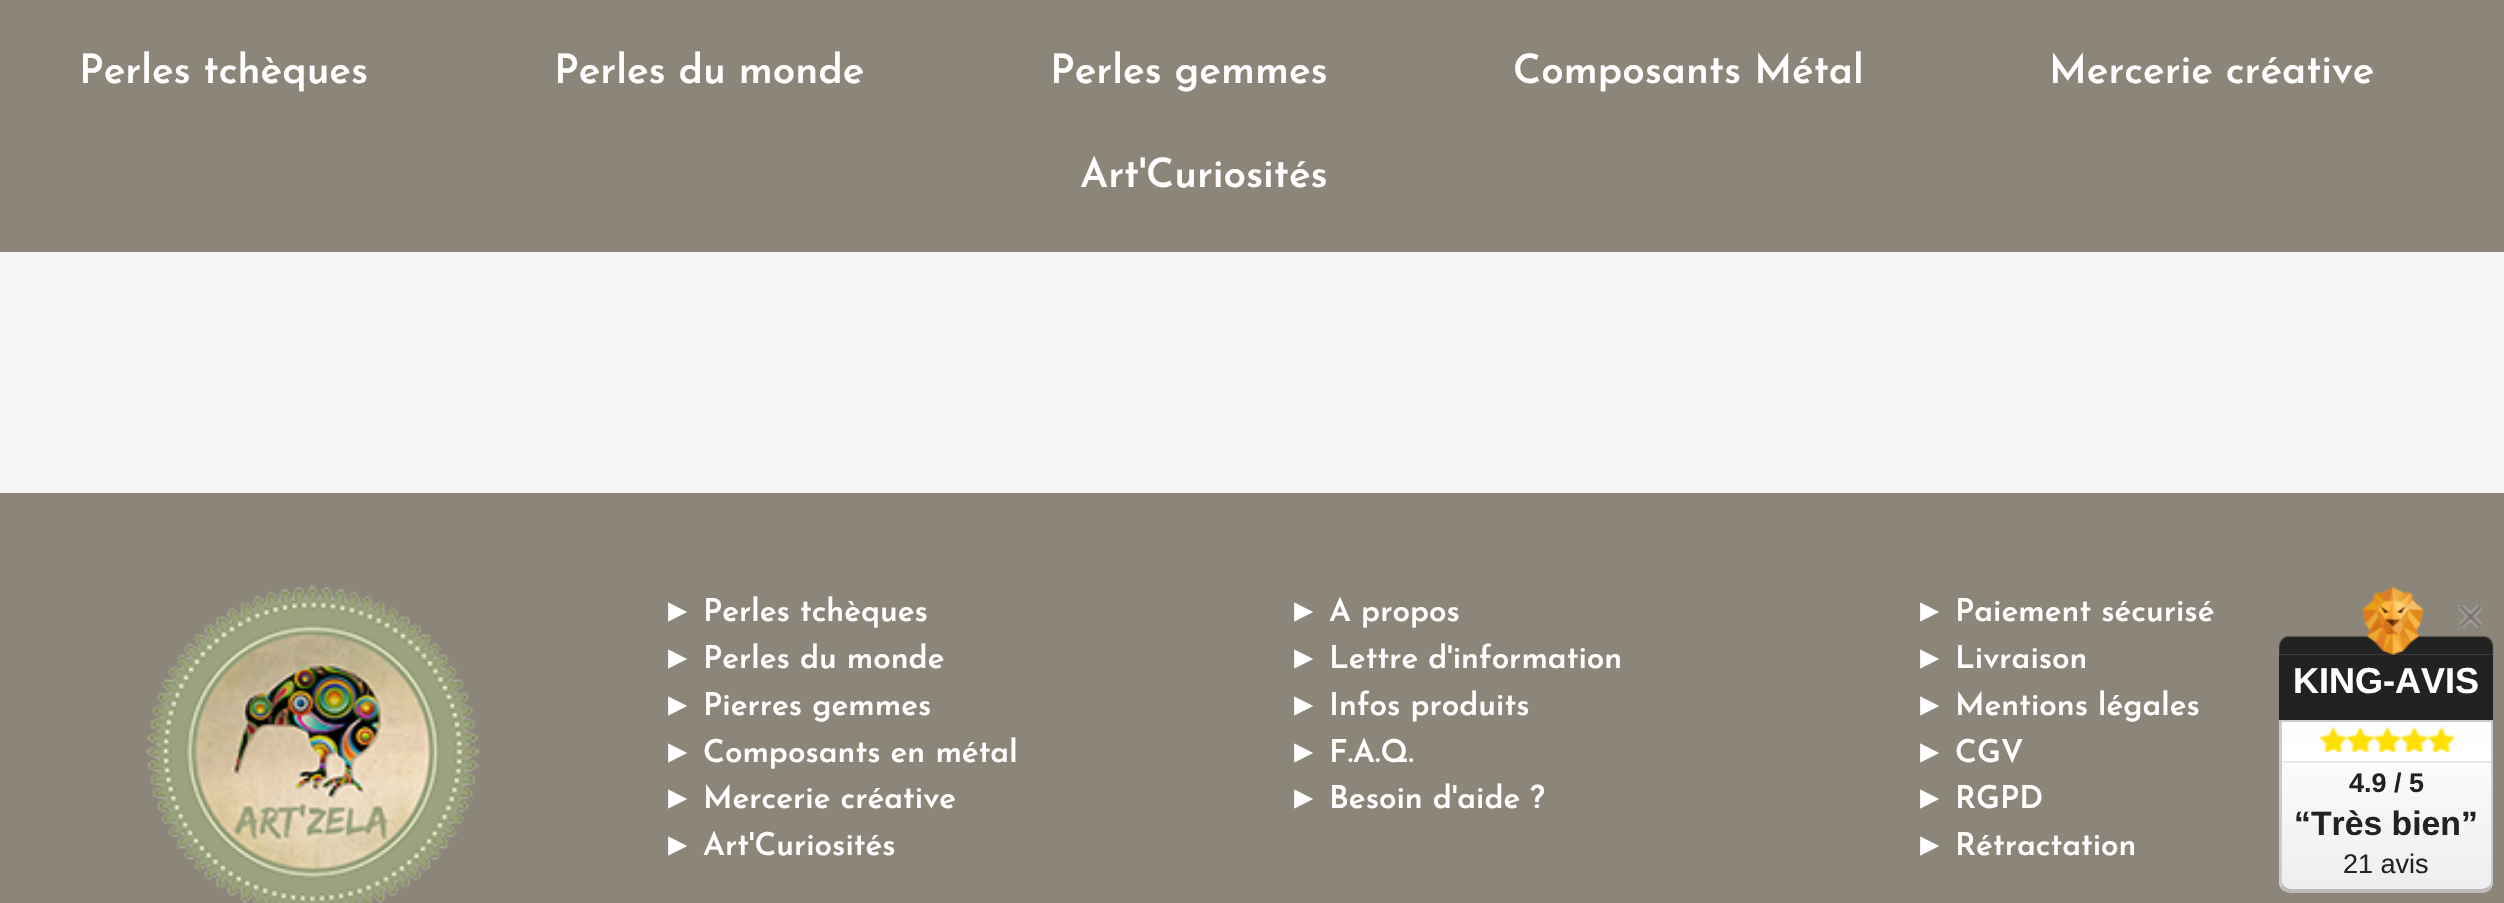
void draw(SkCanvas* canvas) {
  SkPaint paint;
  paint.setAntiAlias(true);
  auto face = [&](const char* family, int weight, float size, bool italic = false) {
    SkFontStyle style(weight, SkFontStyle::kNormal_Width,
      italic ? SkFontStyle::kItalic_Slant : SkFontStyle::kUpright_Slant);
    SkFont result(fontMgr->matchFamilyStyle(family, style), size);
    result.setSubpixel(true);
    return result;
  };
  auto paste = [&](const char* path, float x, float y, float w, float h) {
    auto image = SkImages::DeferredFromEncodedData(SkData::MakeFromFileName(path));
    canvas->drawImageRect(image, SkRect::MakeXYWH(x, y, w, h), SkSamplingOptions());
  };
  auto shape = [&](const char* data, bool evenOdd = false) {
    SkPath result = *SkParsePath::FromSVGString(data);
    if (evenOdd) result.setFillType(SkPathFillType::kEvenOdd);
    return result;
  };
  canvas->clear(0xfff6f6f6);
  paint.setColor(0xff8c8579);
  canvas->drawRect(SkRect::MakeXYWH(0, 0, 2504, 252), paint);
  canvas->drawRect(SkRect::MakeXYWH(0, 493, 2504, 410), paint);
  paste("img/1.png", 146, 584, 334, 319);
  paste("img/2.png", 2279, 586, 215, 69);
  paint.setColor(0xff222222);
  canvas->drawRect(SkRect::MakeXYWH(2279, 655, 214, 65), paint);
  {
    const SkColor colors[] = {0xffffffff, 0xffeeeeee};
    const float stops[] = {0, 1};
    const SkPoint ends[] = {{2386, 722}, {2386, 889}};
    paint.setShader(SkGradientShader::MakeLinear(ends, colors, stops, 2, SkTileMode::kClamp));
    paint.setAlpha(255);
  }
  canvas->drawPath(shape("M2282 722H2491V882C2491 886 2487 889 2482 889H2290C2286 889 2282 886 2282 882Z"), paint);
  paint.setShader(nullptr);
  paint.setColor(0xffcccccc);
  canvas->drawPath(shape("M2282 722H2491L2493 720H2279L2282 723Z"), paint);
  canvas->drawPath(shape("M2493 720L2491 722V883L2489 886L2491 889C2492 887 2493 884 2493 882Z"), paint);
  paint.setColor(0xffbbbbbb);
  canvas->drawPath(shape("M2491 889C2489 891 2486 893 2482 893H2290C2287 893 2283 891 2281 889L2283 886C2285 888 2287 889 2290 889H2482C2485 889 2488 888 2489 886Z"), paint);
  paint.setColor(0xffcccccc);
  canvas->drawPath(shape("M2281 889L2279 884V720L2282 723V882C2282 883 2282 884 2283 886Z"), paint);
  paste("img/3.png", 2459, 605, 23, 24);
  paint.setColor(0xffffffff);
  canvas->drawRect(SkRect::MakeXYWH(2282, 747, 209, 14), paint);
  paint.setColor(0xffe9e9e9);
  canvas->drawRect(SkRect::MakeXYWH(2282, 761, 209, 2), paint);
  paste("img/4.png", 2319, 726, 29, 27);
  paste("img/5.png", 2346, 726, 28, 27);
  paste("img/6.png", 2373, 726, 29, 27);
  paste("img/7.png", 2400, 726, 28, 27);
  paste("img/8.png", 2427, 726, 29, 27);
  auto f0 = face("Josefin Sans", 600, 40.5f);
  paint.setColor(0xffffffff);
  {
    const struct { const char* s; float x, y; } items[] = {
      {"Perles tchèques", 79, 83},
      {"Perles du monde", 554, 83},
      {"Perles gemmes", 1050, 83},
      {"Composants Métal", 1513, 83},
      {"Mercerie créative", 2049, 83},
      {"Art'Curiosités", 1080, 187},
    };
    for (auto [s, x, y] : items) {
      canvas->drawString(s, x, y, f0, paint);
    }
  }
  auto f1 = face("Liberation Sans", 700, 31.5f);
  canvas->drawString("►", 662, 621, f1, paint);
  auto f2 = face("Josefin Sans", 600, 31.5f);
  canvas->drawString("Perles tchèques", 703, 621, f2, paint);
  canvas->drawString("►", 662, 668, f1, paint);
  canvas->drawString("Perles du monde", 703, 668, f2, paint);
  canvas->drawString("►", 662, 715, f1, paint);
  canvas->drawString("Pierres gemmes", 703, 715, f2, paint);
  canvas->drawString("►", 662, 762, f1, paint);
  canvas->drawString("Composants en métal", 703, 762, f2, paint);
  canvas->drawString("►", 662, 808, f1, paint);
  canvas->drawString("Mercerie créative", 703, 808, f2, paint);
  canvas->drawString("►", 662, 855, f1, paint);
  canvas->drawString("Art'Curiosités", 703, 855, f2, paint);
  canvas->drawString("►", 1288, 621, f1, paint);
  canvas->drawString("A propos", 1329, 621, f2, paint);
  canvas->drawString("►", 1288, 668, f1, paint);
  canvas->drawString("Lettre d'information", 1329, 668, f2, paint);
  canvas->drawString("►", 1288, 715, f1, paint);
  canvas->drawString("Infos produits", 1329, 715, f2, paint);
  canvas->drawString("►", 1288, 762, f1, paint);
  canvas->drawString("F.A.Q.", 1329, 762, f2, paint);
  canvas->drawString("►", 1288, 808, f1, paint);
  canvas->drawString("Besoin d'aide ?", 1329, 808, f2, paint);
  canvas->drawString("►", 1914, 621, f1, paint);
  canvas->drawString("Paiement sécurisé", 1955, 621, f2, paint);
  canvas->drawString("►", 1914, 668, f1, paint);
  canvas->drawString("Livraison", 1955, 668, f2, paint);
  canvas->drawString("►", 1914, 715, f1, paint);
  canvas->drawString("Mentions légales", 1955, 715, f2, paint);
  canvas->drawString("►", 1914, 762, f1, paint);
  canvas->drawString("CGV", 1955, 762, f2, paint);
  canvas->drawString("►", 1914, 808, f1, paint);
  canvas->drawString("RGPD", 1955, 808, f2, paint);
  canvas->drawString("►", 1914, 855, f1, paint);
  canvas->drawString("Rétractation", 1955, 855, f2, paint);
  auto f3 = face("Liberation Sans", 700, 36);
  canvas->drawString("KING-AVIS", 2293, 693, f3, paint);
  auto f4 = face("Liberation Sans", 700, 27);
  paint.setColor(0xff222222);
  canvas->drawString("4.9 / 5", 2349, 792, f4, paint);
  auto f5 = face("Liberation Sans", 700, 33.75f);
  canvas->drawString("“Très bien”", 2294, 835, f5, paint);
  auto f6 = face("Liberation Sans", 400, 27);
  canvas->drawString("21 avis", 2343, 873, f6, paint);
}
